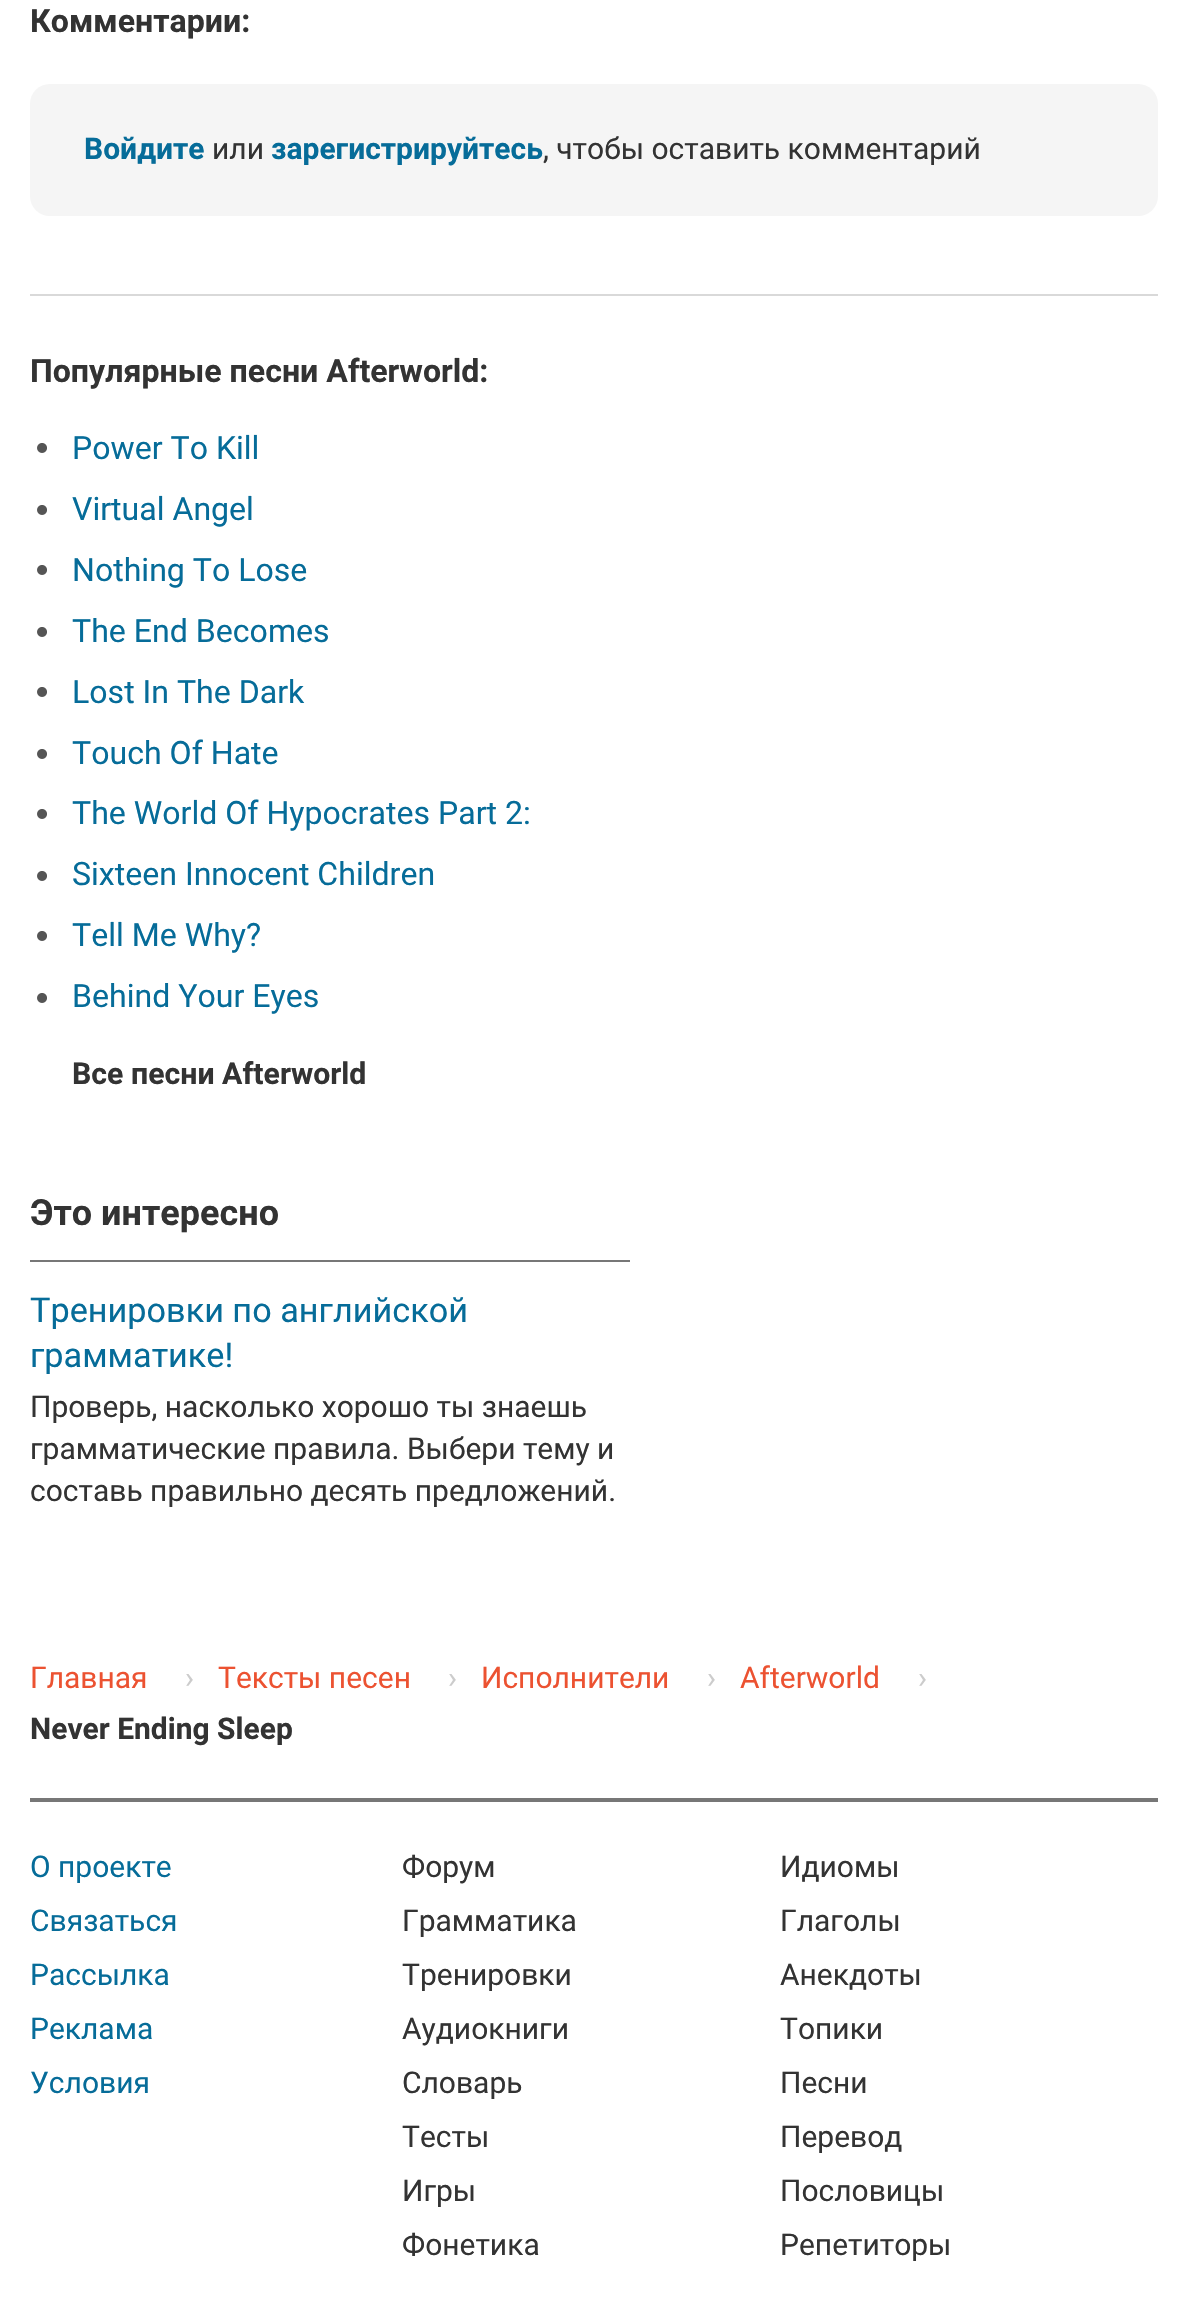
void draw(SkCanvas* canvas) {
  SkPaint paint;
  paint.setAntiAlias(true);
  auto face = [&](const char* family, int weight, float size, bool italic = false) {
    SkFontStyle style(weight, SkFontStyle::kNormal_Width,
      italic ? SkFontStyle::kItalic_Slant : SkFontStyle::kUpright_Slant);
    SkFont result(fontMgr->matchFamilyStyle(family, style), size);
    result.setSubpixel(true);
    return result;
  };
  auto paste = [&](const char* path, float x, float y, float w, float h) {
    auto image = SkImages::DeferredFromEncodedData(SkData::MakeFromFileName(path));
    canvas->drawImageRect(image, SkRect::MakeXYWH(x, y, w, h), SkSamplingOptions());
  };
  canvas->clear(0xffffffff);
  paint.setColor(0xfff5f5f5);
  canvas->drawRoundRect(SkRect::MakeXYWH(30, 84, 1128, 132), 20, 20, paint);
  paint.setColor(0xffd9d9d9);
  canvas->drawRect(SkRect::MakeXYWH(30, 294, 1128, 2), paint);
  paste("img/1.png", 37, 443, 10, 10);
  paste("img/1.png", 37, 505, 10, 10);
  paste("img/1.png", 37, 565, 10, 10);
  paste("img/1.png", 37, 627, 10, 10);
  paste("img/1.png", 37, 687, 10, 10);
  paste("img/1.png", 37, 749, 10, 10);
  paste("img/1.png", 37, 809, 10, 10);
  paste("img/1.png", 37, 871, 10, 10);
  paste("img/1.png", 37, 931, 10, 10);
  paste("img/1.png", 37, 993, 10, 10);
  paint.setColor(0xff777777);
  canvas->drawRect(SkRect::MakeXYWH(30, 1260, 600, 2), paint);
  canvas->drawRect(SkRect::MakeXYWH(30, 1798, 1128, 4), paint);
  auto f0 = face("Roboto", 700, 32.1f);
  paint.setColor(0xff333333);
  canvas->drawString("Комментарии:", 30, 32, f0, paint);
  auto f1 = face("Roboto", 700, 30);
  paint.setColor(0xff066c99);
  canvas->drawString("Войдите", 84, 159, f1, paint);
  auto f2 = face("Roboto", 400, 30);
  paint.setColor(0xff333333);
  canvas->drawString("или", 212, 159, f2, paint);
  paint.setColor(0xff066c99);
  canvas->drawString("зарегистрируйтесь", 271, 159, f1, paint);
  paint.setColor(0xff333333);
  canvas->drawString(", чтобы оставить комментарий", 543, 159, f2, paint);
  canvas->drawString("Популярные песни Afterworld:", 30, 382, f0, paint);
  auto f3 = face("Roboto", 400, 32.1f);
  paint.setColor(0xff066c99);
  {
    const struct { const char* s; float x, y; } items[] = {
      {"Power To Kill", 72, 459},
      {"Virtual Angel", 72, 520},
      {"Nothing To Lose", 72, 581},
      {"The End Becomes", 72, 642},
      {"Lost In The Dark", 72, 703},
      {"Touch Of Hate", 72, 764},
      {"The World Of Hypocrates Part 2:", 72, 824},
      {"Sixteen Innocent Children", 72, 885},
      {"Tell Me Why?", 72, 946},
      {"Behind Your Eyes", 72, 1007},
    };
    for (auto [s, x, y] : items) {
      canvas->drawString(s, x, y, f3, paint);
    }
  }
  auto f4 = face("Roboto", 700, 30.25f);
  paint.setColor(0xff333333);
  canvas->drawString("Все песни Afterworld", 72, 1084, f4, paint);
  auto f5 = face("Roboto", 700, 36);
  canvas->drawString("Это интересно", 30, 1225, f5, paint);
  auto f6 = face("Roboto", 400, 34.25f);
  paint.setColor(0xff066c99);
  canvas->drawString("Тренировки по английской", 30, 1322, f6, paint);
  canvas->drawString("грамматике!", 30, 1367, f6, paint);
  paint.setColor(0xff333333);
  {
    const struct { const char* s; float x, y; } items[] = {
      {"Проверь, насколько хорошо ты знаешь", 30, 1417},
      {"грамматические правила. Выбери тему и", 30, 1459},
      {"составь правильно десять предложений.", 30, 1501},
    };
    for (auto [s, x, y] : items) {
      canvas->drawString(s, x, y, f2, paint);
    }
  }
  paint.setColor(0xffec5231);
  canvas->drawString("Главная", 30, 1688, f2, paint);
  paint.setColor(0xffcccccc);
  canvas->drawString("›", 185, 1688, f2, paint);
  paint.setColor(0xffec5231);
  canvas->drawString("Тексты песен", 218, 1688, f2, paint);
  paint.setColor(0xffcccccc);
  canvas->drawString("›", 448, 1688, f2, paint);
  paint.setColor(0xffec5231);
  canvas->drawString("Исполнители", 481, 1688, f2, paint);
  paint.setColor(0xffcccccc);
  canvas->drawString("›", 707, 1688, f2, paint);
  paint.setColor(0xffec5231);
  canvas->drawString("Afterworld", 740, 1688, f2, paint);
  paint.setColor(0xffcccccc);
  canvas->drawString("›", 918, 1688, f2, paint);
  paint.setColor(0xff333333);
  canvas->drawString("Never Ending Sleep", 30, 1739, f1, paint);
  paint.setColor(0xff066c99);
  {
    const struct { const char* s; float x, y; } items[] = {
      {"О проекте", 30, 1877},
      {"Связаться", 30, 1931},
      {"Рассылка", 30, 1985},
      {"Реклама", 30, 2039},
      {"Условия", 30, 2093},
    };
    for (auto [s, x, y] : items) {
      canvas->drawString(s, x, y, f2, paint);
    }
  }
  paint.setColor(0xff333333);
  {
    const struct { const char* s; float x, y; } items[] = {
      {"Форум", 402, 1877},
      {"Грамматика", 402, 1931},
      {"Тренировки", 402, 1985},
      {"Аудиокниги", 402, 2039},
      {"Словарь", 402, 2093},
      {"Тесты", 402, 2147},
      {"Игры", 402, 2201},
      {"Фонетика", 402, 2255},
      {"Идиомы", 780, 1877},
      {"Глаголы", 780, 1931},
      {"Анекдоты", 780, 1985},
      {"Топики", 780, 2039},
      {"Песни", 780, 2093},
      {"Перевод", 780, 2147},
      {"Пословицы", 780, 2201},
      {"Репетиторы", 780, 2255},
    };
    for (auto [s, x, y] : items) {
      canvas->drawString(s, x, y, f2, paint);
    }
  }
}
